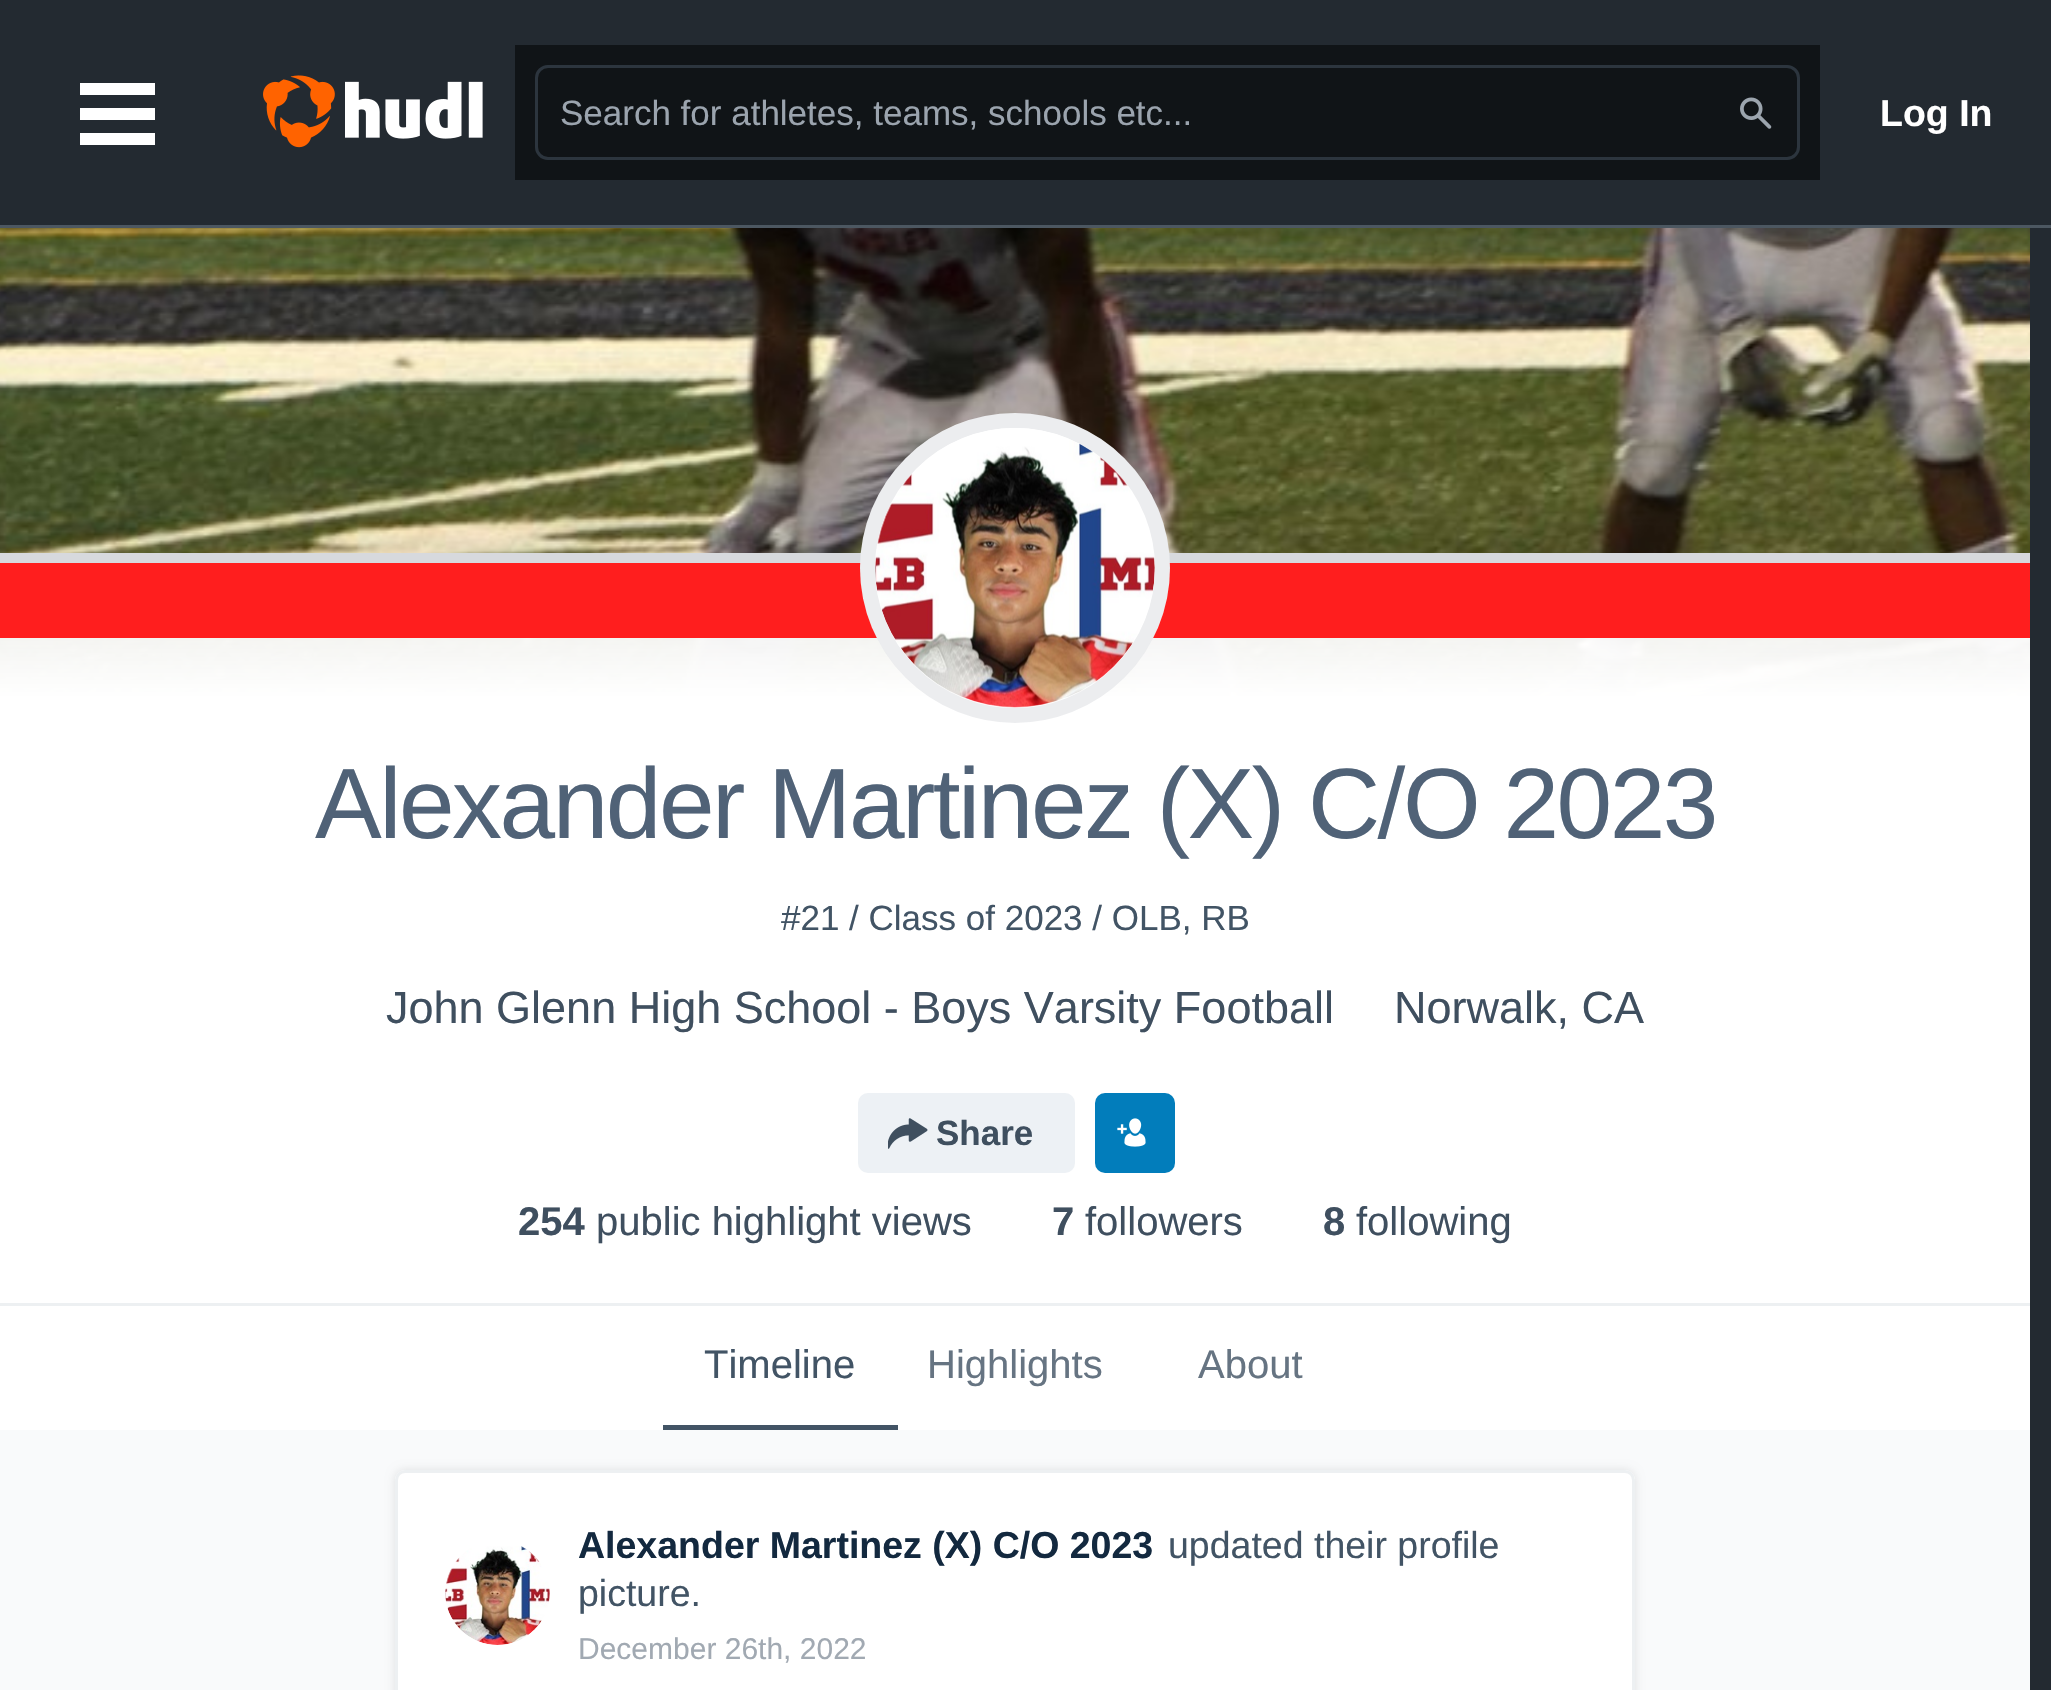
void draw(SkCanvas* canvas) {
  SkPaint paint;
  paint.setAntiAlias(true);
  auto face = [&](const char* family, int weight, float size, bool italic = false) {
    SkFontStyle style(weight, SkFontStyle::kNormal_Width,
      italic ? SkFontStyle::kItalic_Slant : SkFontStyle::kUpright_Slant);
    SkFont result(fontMgr->matchFamilyStyle(family, style), size);
    result.setSubpixel(true);
    return result;
  };
  auto writeSpaced = [&](const char* s, float x, float y, const SkFont& font, const SkPaint& ink, float letter, float word) {
    std::vector<SkGlyphID> glyphs(font.countText(s, strlen(s), SkTextEncoding::kUTF8));
    std::vector<float> xs(glyphs.size());
    font.textToGlyphs(s, strlen(s), SkTextEncoding::kUTF8, glyphs);
    font.getXPos(glyphs, xs, x);
    float extra = 0;
    for (size_t i = 0; i < glyphs.size(); i++) {
      xs[i] += extra;
      extra += letter + word * (glyphs[i] == font.unicharToGlyph(' '));
    }
    canvas->drawTextBlob(SkTextBlob::MakeFromPosHGlyphs(glyphs, xs, y, font), 0, 0, ink);
  };
  auto paste = [&](const char* path, float x, float y, float w, float h) {
    auto image = SkImages::DeferredFromEncodedData(SkData::MakeFromFileName(path));
    canvas->drawImageRect(image, SkRect::MakeXYWH(x, y, w, h), SkSamplingOptions());
  };
  auto shape = [&](const char* data, bool evenOdd = false) {
    SkPath result = *SkParsePath::FromSVGString(data);
    if (evenOdd) result.setFillType(SkPathFillType::kEvenOdd);
    return result;
  };
  canvas->clear(0xff232a31);
  {
    const struct { float x, y, w, h; SkColor color; } items[] = {
      {0, 225, 2051, 3, 0xff4c5761},
      {80, 83, 75, 12, 0xffffffff},
      {80, 108, 75, 12, 0xffffffff},
      {80, 133, 75, 12, 0xffffffff},
    };
    for (auto [x, y, w, h, color] : items) {
      paint.setColor(color);
      canvas->drawRect(SkRect::MakeXYWH(x, y, w, h), paint);
    }
  }
  paste("img/1.png", 263, 75, 220, 73);
  paint.setColor(0xff101417);
  canvas->drawRect(SkRect::MakeXYWH(515, 45, 1305, 135), paint);
  paint.setStroke(true);
  paint.setStrokeWidth(3);
  paint.setColor(0xff2c353e);
  canvas->drawRoundRect(SkRect::MakeXYWH(536.5f, 66.5f, 1262, 92), 11.5f, 11.5f, paint);
  paste("img/2.png", 1740, 97, 32, 32);
  paste("img/3.png", 0, 228, 2030, 468);
  paint.setStroke(false);
  {
    const SkColor colors[] = {0xd9ffffff, 0xffffffff};
    const float stops[] = {0, 0.2f};
    const SkPoint ends[] = {{1015, 552}, {1015, 1303}};
    paint.setShader(SkGradientShader::MakeLinear(ends, colors, stops, 2, SkTileMode::kClamp));
    paint.setAlpha(255);
  }
  canvas->drawRect(SkRect::MakeXYWH(0, 638, 2030, 665), paint);
  paint.setShader(nullptr);
  {
    const struct { float x, y, w, h; SkColor color; } items[] = {
      {0, 1303, 2030, 3, 0xffedf0f2},
      {0, 553, 2030, 10, 0xffd7d9dd},
      {0, 563, 2030, 75, 0xffff1e1e},
    };
    for (auto [x, y, w, h, color] : items) {
      paint.setColor(color);
      canvas->drawRect(SkRect::MakeXYWH(x, y, w, h), paint);
    }
  }
  paint.setColor(0xffffffff);
  canvas->drawCircle(1015, 568, 155, paint);
  paint.setStroke(true);
  paint.setStrokeWidth(15);
  paint.setColor(0x1a45525e);
  canvas->drawCircle(1015, 568, 147.5f, paint);
  paste("img/4.png", 875, 428, 280, 280);
  paint.setStroke(false);
  paint.setColor(0xffedf1f5);
  canvas->drawRoundRect(SkRect::MakeXYWH(858, 1093, 217, 80), 10, 10, paint);
  paste("img/5.png", 888, 1118, 40, 31);
  paint.setColor(0xff027dbb);
  canvas->drawRoundRect(SkRect::MakeXYWH(1095, 1093, 80, 80), 10, 10, paint);
  paste("img/6.png", 1117, 1118, 29, 29);
  {
    const struct { float x, y, w, h; SkColor color; } items[] = {
      {0, 1306, 2030, 124, 0xffffffff},
      {663, 1425, 235, 5, 0xff425465},
      {0, 1430, 2030, 260, 0xfff9fafb},
    };
    for (auto [x, y, w, h, color] : items) {
      paint.setColor(color);
      canvas->drawRect(SkRect::MakeXYWH(x, y, w, h), paint);
    }
  }
  paint.setColor(0x1a000000);
  paint.setMaskFilter(SkMaskFilter::MakeBlur(kNormal_SkBlurStyle, 5));
  canvas->drawRoundRect(SkRect::MakeXYWH(395, 1470, 1240, 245), 10, 10, paint);
  paint.setMaskFilter(nullptr);
  paint.setColor(0xffffffff);
  canvas->drawPath(shape("M405 1470H1625C1630.5 1470 1635 1474.5 1635 1480V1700H395V1480C395 1474.5 399.5 1470 405 1470Z"), paint);
  paint.setStroke(true);
  paint.setStrokeWidth(3);
  paint.setColor(0xffedf0f2);
  canvas->drawRoundRect(SkRect::MakeXYWH(396.5f, 1471.5f, 1237, 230), 8.5f, 8.5f, paint);
  paste("img/7.png", 445, 1546, 105, 99);
  auto f0 = face("Liberation Sans", 400, 35);
  paint.setStroke(false);
  paint.setColor(0xff9ba4ae);
  canvas->drawString("Search for athletes, teams, schools etc...", 560, 125, f0, paint);
  auto f1 = face("Liberation Sans", 700, 37.5f);
  paint.setColor(0xffffffff);
  canvas->drawString("Log In", 1880, 126, f1, paint);
  auto f2 = face("Liberation Sans", 400, 100);
  paint.setColor(0xff506277);
  writeSpaced("Alexander Martinez (X) C/O 2023", 315, 838, f2, paint, -2.5f, 0);
  paint.setColor(0xff425465);
  canvas->drawString("#21 / Class of 2023 / OLB, RB", 781, 930, f0, paint);
  auto f3 = face("Liberation Sans", 400, 45);
  paint.setColor(0xff3f4f5f);
  canvas->drawString("John Glenn High School - Boys Varsity Football", 386, 1023, f3, paint);
  canvas->drawString("Norwalk, CA", 1394, 1023, f3, paint);
  auto f4 = face("Liberation Sans", 700, 35);
  canvas->drawString("Share", 936, 1145, f4, paint);
  auto f5 = face("Liberation Sans", 700, 40);
  canvas->drawString("254", 518, 1235, f5, paint);
  auto f6 = face("Liberation Sans", 400, 40);
  canvas->drawString("public highlight views", 596, 1235, f6, paint);
  canvas->drawString("7", 1052, 1235, f5, paint);
  canvas->drawString("followers", 1085, 1235, f6, paint);
  canvas->drawString("8", 1323, 1235, f5, paint);
  canvas->drawString("following", 1356, 1235, f6, paint);
  paint.setColor(0xff425465);
  canvas->drawString("Timeline", 704, 1378, f6, paint);
  paint.setColor(0xff667482);
  canvas->drawString("Highlights", 927, 1378, f6, paint);
  canvas->drawString("About", 1198, 1378, f6, paint);
  paint.setColor(0xff13293f);
  canvas->drawString("Alexander Martinez (X) C/O 2023", 578, 1558, f1, paint);
  auto f7 = face("Liberation Sans", 400, 37.5f);
  paint.setColor(0xff425465);
  canvas->drawString("updated their profile", 1168, 1558, f7, paint);
  canvas->drawString("picture.", 578, 1606, f7, paint);
  auto f8 = face("Liberation Sans", 400, 30);
  paint.setColor(0xffa1a9b2);
  canvas->drawString("December 26th, 2022", 578, 1659, f8, paint);
}
